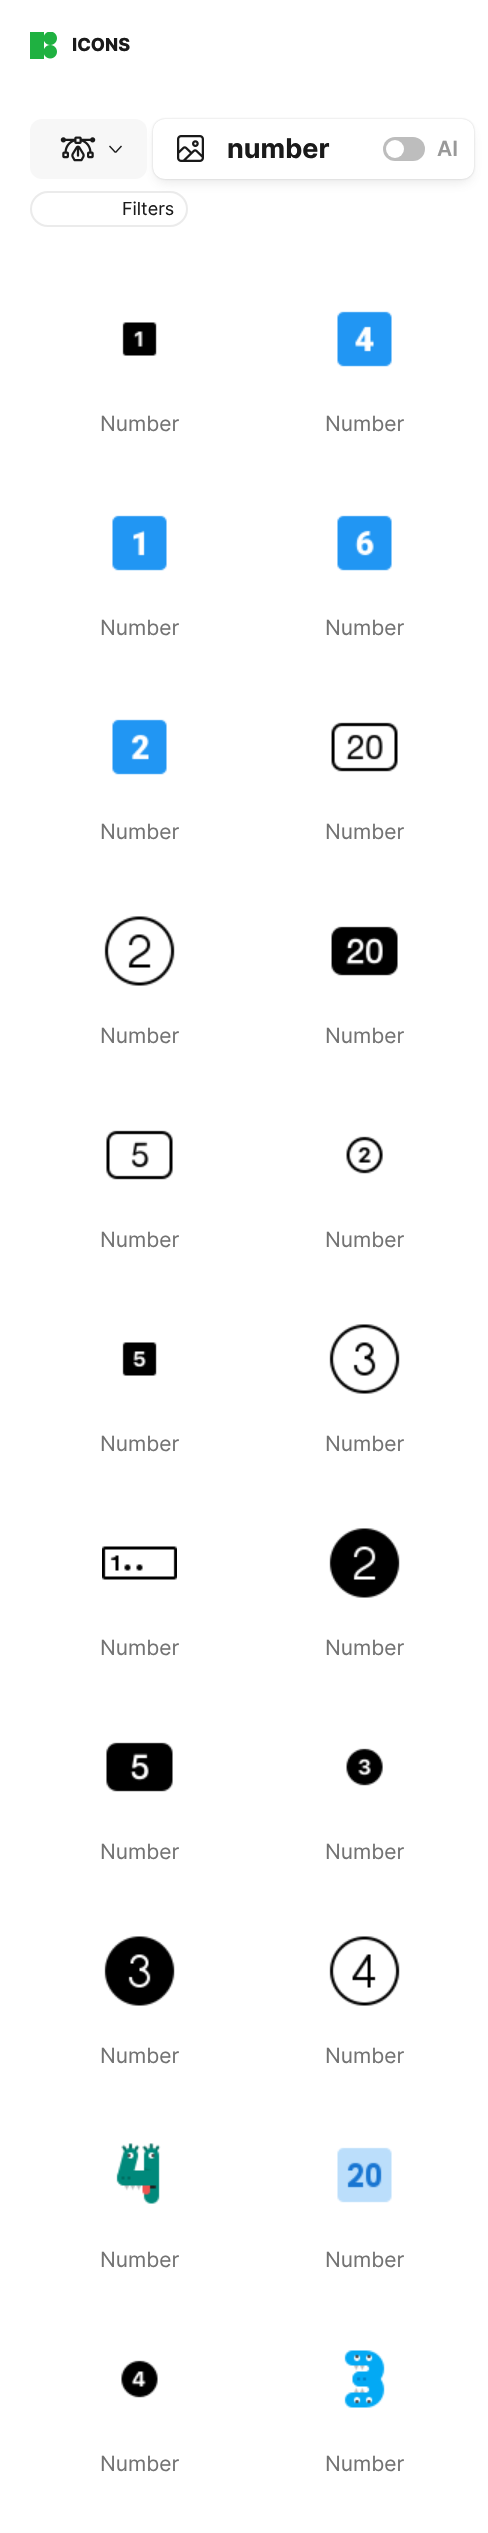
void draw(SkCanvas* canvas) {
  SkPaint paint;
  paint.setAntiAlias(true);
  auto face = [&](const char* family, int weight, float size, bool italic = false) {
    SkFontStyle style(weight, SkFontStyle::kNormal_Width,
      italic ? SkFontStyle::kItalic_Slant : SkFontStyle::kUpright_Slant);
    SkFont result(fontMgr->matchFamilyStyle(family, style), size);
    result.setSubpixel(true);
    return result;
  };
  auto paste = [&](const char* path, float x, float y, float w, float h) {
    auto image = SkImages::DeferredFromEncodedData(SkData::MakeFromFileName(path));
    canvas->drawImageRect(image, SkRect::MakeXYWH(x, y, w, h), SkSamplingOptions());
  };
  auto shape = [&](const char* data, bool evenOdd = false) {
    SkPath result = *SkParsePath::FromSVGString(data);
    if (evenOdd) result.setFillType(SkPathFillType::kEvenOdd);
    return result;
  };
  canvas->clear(0xffffffff);
  paste("img/1.png", 30, 32, 27, 27);
  paint.setStroke(true);
  paint.setStrokeWidth(2);
  paint.setColor(0xffebebeb);
  canvas->drawRoundRect(SkRect::MakeXYWH(31, 192, 156, 34), 17, 17, paint);
  paint.setStroke(false);
  paint.setColor(0x26606060);
  paint.setMaskFilter(SkMaskFilter::MakeBlur(kNormal_SkBlurStyle, 6));
  canvas->drawRoundRect(SkRect::MakeXYWH(156, 128, 315, 54), 9, 9, paint);
  paint.setMaskFilter(nullptr);
  paint.setColor(0xfff7f7f7);
  canvas->drawRoundRect(SkRect::MakeXYWH(30, 119, 117, 60), 12, 12, paint);
  paste("img/2.png", 60, 136, 36, 26);
  paint.setColor(0xff1a1a1a);
  canvas->drawPath(shape("M110 145.5L116 152L115 153L109 146.5Z"), paint);
  canvas->drawPath(shape("M115 152L121 145.5L122 146.5L116 153Z"), paint);
  paint.setColor(0x4f606060);
  paint.setMaskFilter(SkMaskFilter::MakeBlur(kNormal_SkBlurStyle, 1));
  canvas->drawRoundRect(SkRect::MakeXYWH(153, 119, 321, 60), 12, 12, paint);
  paint.setMaskFilter(nullptr);
  paint.setColor(0xffffffff);
  canvas->drawRoundRect(SkRect::MakeXYWH(153, 119, 321, 60), 12, 12, paint);
  paste("img/3.png", 177, 135, 27, 27);
  paint.setColor(0xffbdbdbd);
  canvas->drawRoundRect(SkRect::MakeXYWH(383, 137, 42, 24), 12, 12, paint);
  paint.setColor(0xffffffff);
  canvas->drawCircle(395, 149, 9, paint);
  paste("img/4.png", 122, 322, 35, 34);
  paste("img/5.png", 337, 311, 55, 56);
  paste("img/6.png", 112, 515, 55, 56);
  paste("img/7.png", 337, 515, 55, 56);
  paste("img/8.png", 112, 719, 55, 56);
  paste("img/9.png", 331, 722, 67, 50);
  paste("img/10.png", 104, 916, 71, 70);
  paste("img/11.png", 331, 926, 67, 50);
  paste("img/12.png", 106, 1130, 67, 50);
  paste("img/13.png", 346, 1136, 37, 38);
  paste("img/14.png", 122, 1342, 35, 34);
  paste("img/15.png", 329, 1324, 71, 70);
  paste("img/16.png", 102, 1546, 75, 34);
  paste("img/17.png", 329, 1528, 71, 70);
  paste("img/18.png", 106, 1742, 67, 50);
  paste("img/19.png", 346, 1748, 37, 38);
  paste("img/20.png", 104, 1936, 71, 70);
  paste("img/21.png", 329, 1936, 71, 70);
  paste("img/22.png", 116, 2143, 45, 61);
  paste("img/23.png", 337, 2147, 55, 56);
  paste("img/24.png", 121, 2360, 37, 38);
  paste("img/25.png", 344, 2350, 41, 58);
  auto f0 = face("Inter", 800, 18);
  paint.setColor(0xff1a1a1a);
  canvas->drawString("ICONS", 72, 51, f0, paint);
  auto f1 = face("Inter", 700, 27);
  canvas->drawString("number", 227, 158, f1, paint);
  auto f2 = face("Inter", 600, 21);
  paint.setColor(0xff999999);
  canvas->drawString("AI", 437, 156, f2, paint);
  auto f3 = face("Inter", 400, 18);
  paint.setColor(0xff1a1a1a);
  canvas->drawString("Filters", 122, 215, f3, paint);
  auto f4 = face("Inter", 400, 21);
  paint.setColor(0xff737373);
  {
    const struct { const char* s; float x, y; } items[] = {
      {"Number", 100, 431},
      {"Number", 325, 431},
      {"Number", 100, 635},
      {"Number", 325, 635},
      {"Number", 100, 839},
      {"Number", 325, 839},
      {"Number", 100, 1043},
      {"Number", 325, 1043},
      {"Number", 100, 1247},
      {"Number", 325, 1247},
      {"Number", 100, 1451},
      {"Number", 325, 1451},
      {"Number", 100, 1655},
      {"Number", 325, 1655},
      {"Number", 100, 1859},
      {"Number", 325, 1859},
      {"Number", 100, 2063},
      {"Number", 325, 2063},
      {"Number", 100, 2267},
      {"Number", 325, 2267},
      {"Number", 100, 2471},
      {"Number", 325, 2471},
    };
    for (auto [s, x, y] : items) {
      canvas->drawString(s, x, y, f4, paint);
    }
  }
}
